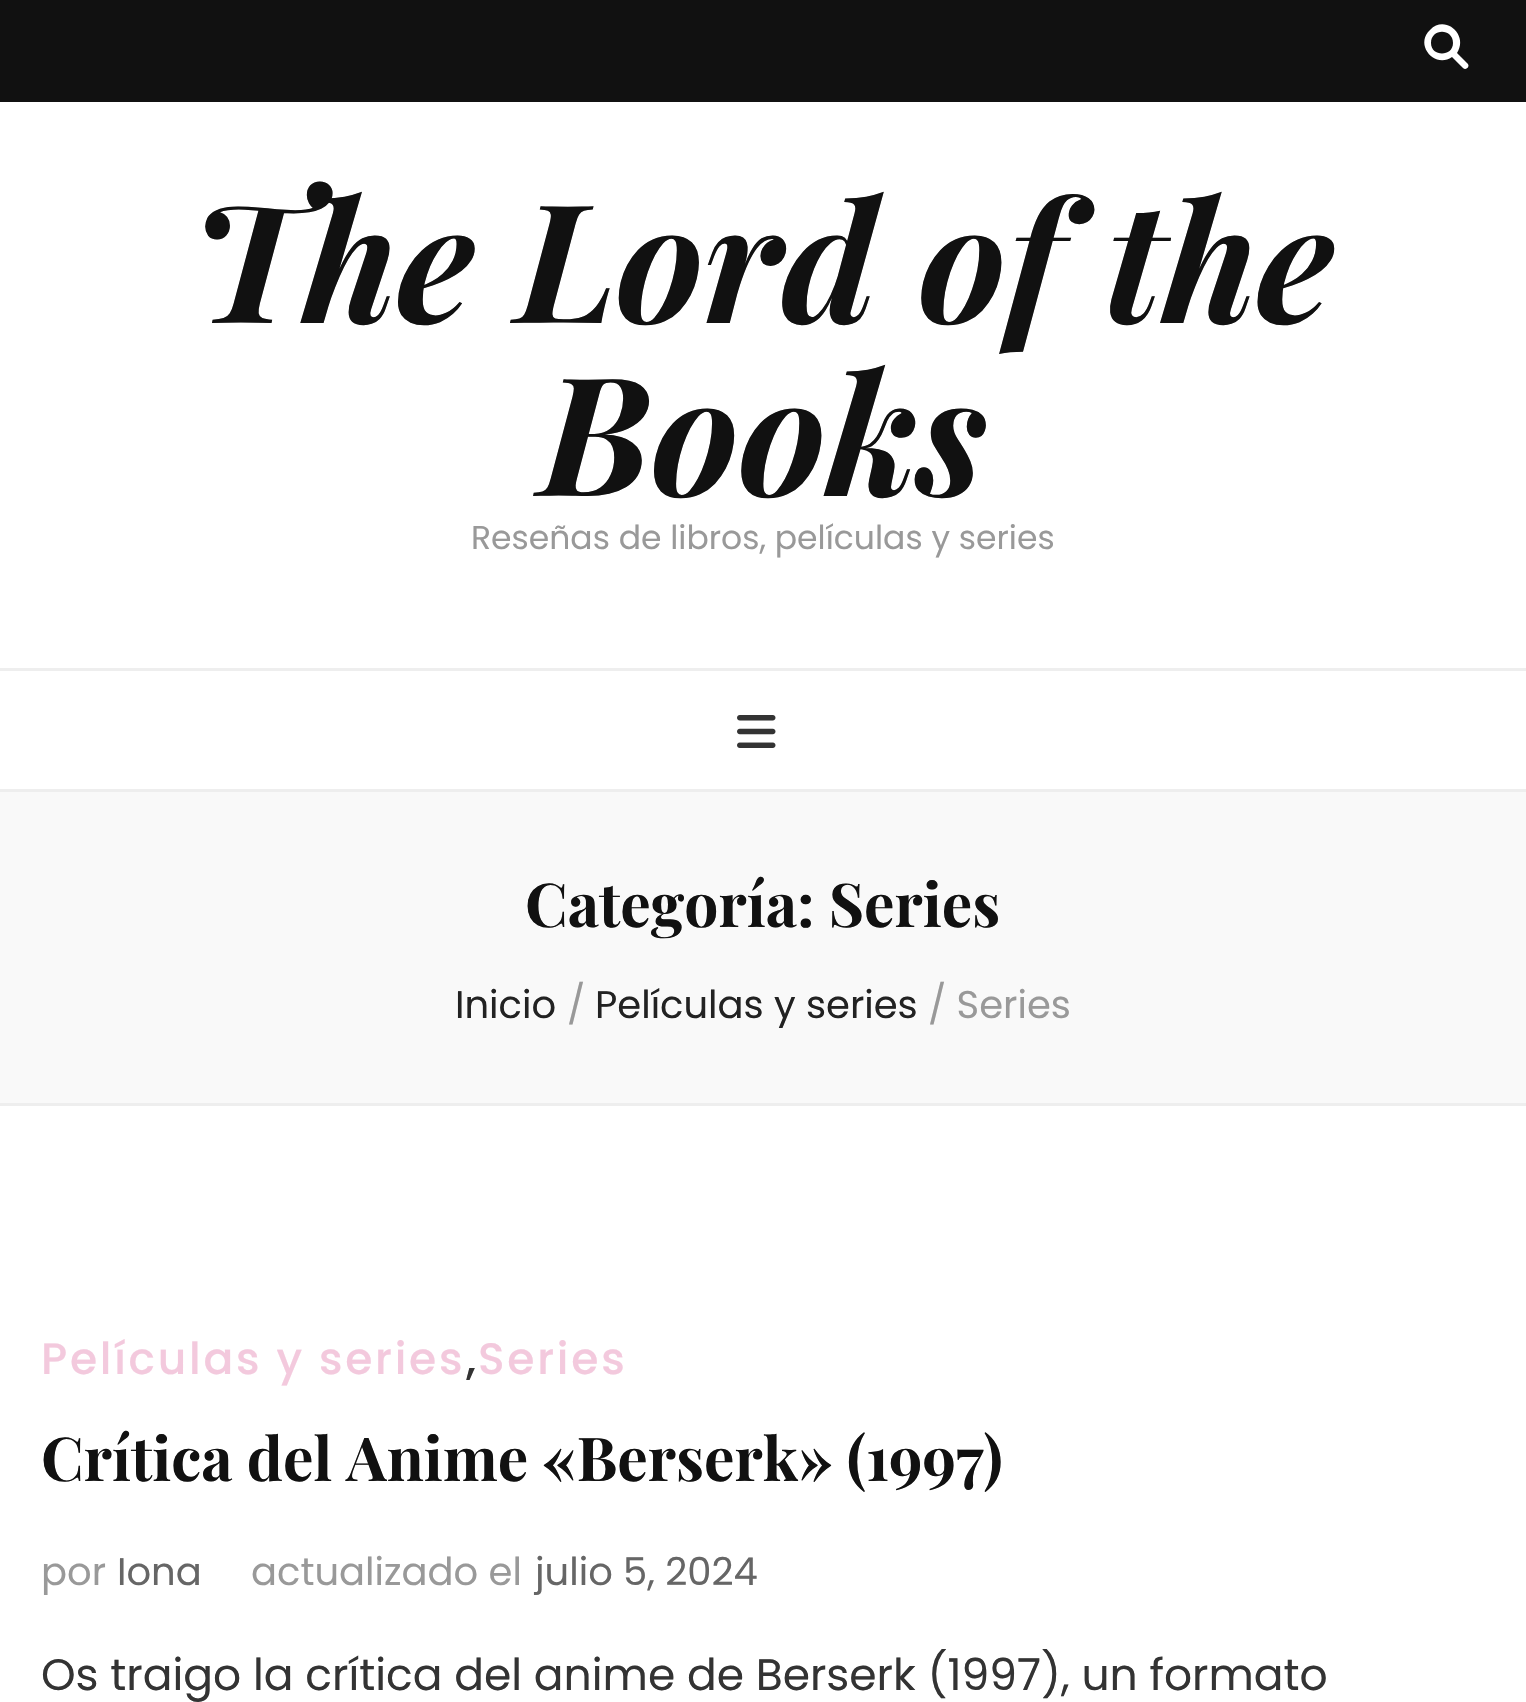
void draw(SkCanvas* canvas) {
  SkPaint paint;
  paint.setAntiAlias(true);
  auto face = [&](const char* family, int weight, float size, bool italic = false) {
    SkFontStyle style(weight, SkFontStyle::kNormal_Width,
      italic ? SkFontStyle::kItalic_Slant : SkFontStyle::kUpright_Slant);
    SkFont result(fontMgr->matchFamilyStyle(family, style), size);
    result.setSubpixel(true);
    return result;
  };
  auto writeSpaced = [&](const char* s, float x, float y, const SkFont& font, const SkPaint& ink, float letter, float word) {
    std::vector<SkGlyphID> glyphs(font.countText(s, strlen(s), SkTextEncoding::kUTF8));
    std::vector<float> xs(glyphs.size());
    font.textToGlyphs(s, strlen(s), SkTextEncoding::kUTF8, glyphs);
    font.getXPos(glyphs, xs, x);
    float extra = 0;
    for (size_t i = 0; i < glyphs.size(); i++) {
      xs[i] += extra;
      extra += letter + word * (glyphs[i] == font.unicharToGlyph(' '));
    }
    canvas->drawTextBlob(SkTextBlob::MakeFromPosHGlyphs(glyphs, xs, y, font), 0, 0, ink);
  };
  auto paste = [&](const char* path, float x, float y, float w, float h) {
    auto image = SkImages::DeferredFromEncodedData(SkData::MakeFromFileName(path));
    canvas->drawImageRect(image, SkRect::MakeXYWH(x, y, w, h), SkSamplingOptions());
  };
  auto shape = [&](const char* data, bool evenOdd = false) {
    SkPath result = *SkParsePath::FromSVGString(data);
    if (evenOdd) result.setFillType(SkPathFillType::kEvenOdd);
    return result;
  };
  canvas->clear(0xffffffff);
  paint.setColor(0xff111111);
  canvas->drawRect(SkRect::MakeXYWH(0, 0, 1526, 102), paint);
  paint.setColor(0xffffffff);
  canvas->drawPath(shape("M1467 63L1457 53C1469 35 1445 14 1430 30C1414 45 1435 69 1452 57L1463 68C1466 71 1471 66 1467 63ZM1431 43C1431 28 1453 28 1453 43C1453 57 1431 57 1431 43Z"), paint);
  paint.setColor(0xffeeeeee);
  canvas->drawRect(SkRect::MakeXYWH(0, 668, 1526, 3), paint);
  canvas->drawRect(SkRect::MakeXYWH(0, 789, 1526, 3), paint);
  paste("img/1.png", 737, 715, 39, 33);
  paint.setColor(0xfff9f9f9);
  canvas->drawRect(SkRect::MakeXYWH(0, 792, 1526, 311), paint);
  paint.setColor(0xffeeeeee);
  canvas->drawRect(SkRect::MakeXYWH(0, 1103, 1526, 3), paint);
  auto f0 = face("Playfair Display", 700, 165, true);
  paint.setColor(0xff111111);
  canvas->drawString("The Lord of the", 191, 323, f0, paint);
  canvas->drawString("Books", 540, 496, f0, paint);
  auto f1 = face("Poppins", 400, 33);
  paint.setColor(0xff999999);
  canvas->drawString("Reseñas de libros, películas y series", 471, 549, f1, paint);
  auto f2 = face("Playfair Display", 700, 60.5f);
  paint.setColor(0xff111111);
  canvas->drawString("Categoría: Series", 525, 927, f2, paint);
  auto f3 = face("Poppins", 400, 38.5f);
  paint.setColor(0xff222222);
  canvas->drawString("Inicio", 455, 1018, f3, paint);
  paint.setColor(0xff999999);
  canvas->drawString("/", 567, 1018, f3, paint);
  paint.setColor(0xff222222);
  canvas->drawString("Películas y series", 595, 1018, f3, paint);
  paint.setColor(0xff999999);
  canvas->drawString("/ Series", 928, 1018, f3, paint);
  auto f4 = face("Poppins", 500, 44);
  paint.setColor(0xfff3c9dd);
  writeSpaced("Películas y series", 41, 1374, f4, paint, 2.75f, 0);
  paint.setColor(0xff333333);
  writeSpaced(",", 466, 1374, f4, paint, 2.75f, 0);
  paint.setColor(0xfff3c9dd);
  writeSpaced("Series", 478, 1374, f4, paint, 2.75f, 0);
  paint.setColor(0xff111111);
  canvas->drawString("Crítica del Anime «Berserk» (1997)", 41, 1481, f2, paint);
  paint.setColor(0xff999999);
  canvas->drawString("por", 41, 1585, f3, paint);
  paint.setColor(0xff666666);
  canvas->drawString("Iona", 117, 1585, f3, paint);
  paint.setColor(0xff999999);
  canvas->drawString("actualizado el", 251, 1585, f3, paint);
  paint.setColor(0xff666666);
  canvas->drawString("julio 5, 2024", 535, 1585, f3, paint);
  auto f5 = face("Poppins", 400, 44);
  paint.setColor(0xff333333);
  canvas->drawString("Os traigo la crítica del anime de Berserk (1997), un formato", 41, 1690, f5, paint);
}
